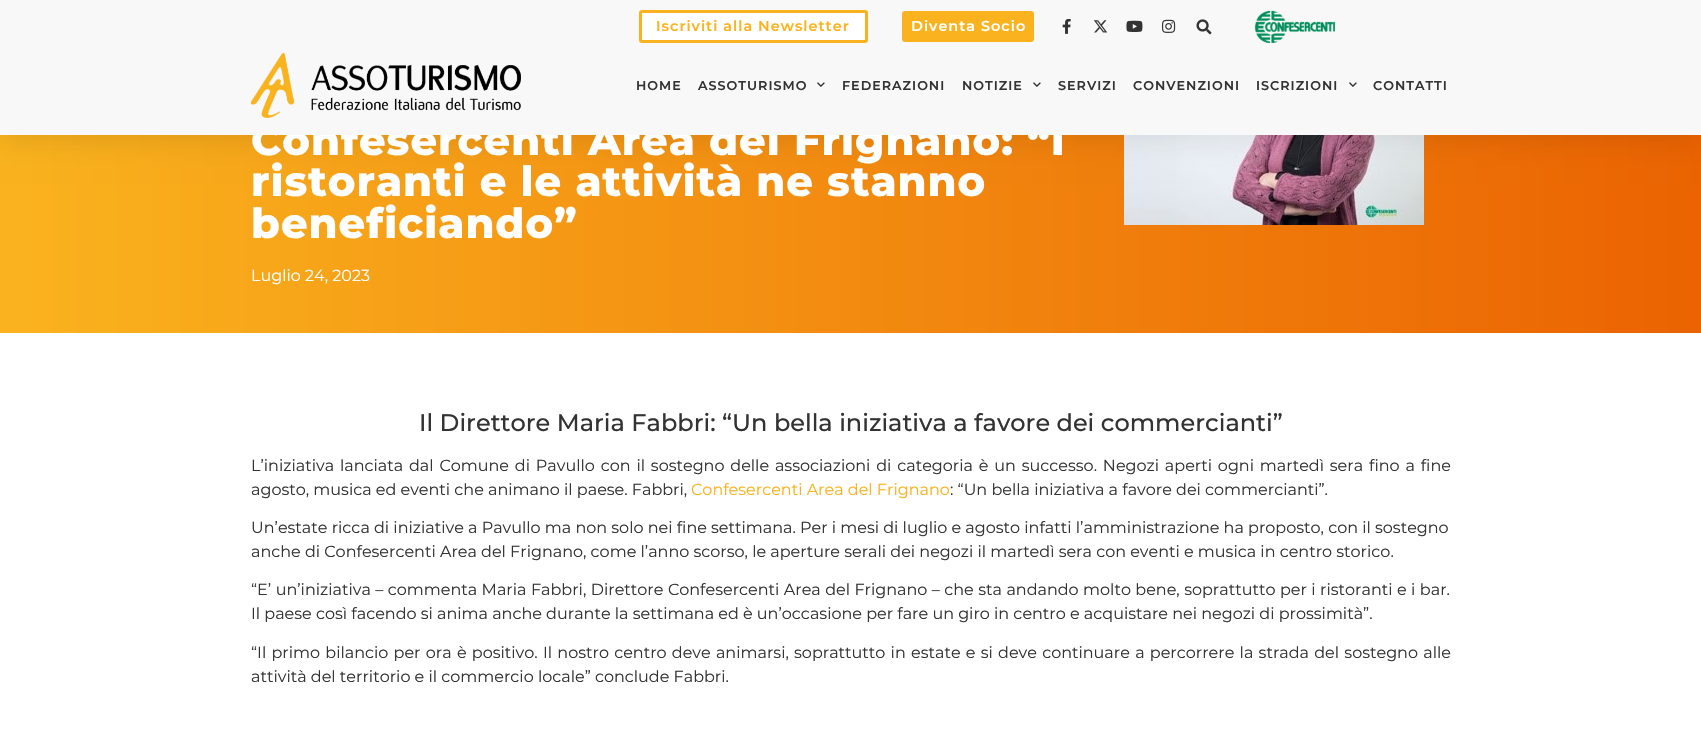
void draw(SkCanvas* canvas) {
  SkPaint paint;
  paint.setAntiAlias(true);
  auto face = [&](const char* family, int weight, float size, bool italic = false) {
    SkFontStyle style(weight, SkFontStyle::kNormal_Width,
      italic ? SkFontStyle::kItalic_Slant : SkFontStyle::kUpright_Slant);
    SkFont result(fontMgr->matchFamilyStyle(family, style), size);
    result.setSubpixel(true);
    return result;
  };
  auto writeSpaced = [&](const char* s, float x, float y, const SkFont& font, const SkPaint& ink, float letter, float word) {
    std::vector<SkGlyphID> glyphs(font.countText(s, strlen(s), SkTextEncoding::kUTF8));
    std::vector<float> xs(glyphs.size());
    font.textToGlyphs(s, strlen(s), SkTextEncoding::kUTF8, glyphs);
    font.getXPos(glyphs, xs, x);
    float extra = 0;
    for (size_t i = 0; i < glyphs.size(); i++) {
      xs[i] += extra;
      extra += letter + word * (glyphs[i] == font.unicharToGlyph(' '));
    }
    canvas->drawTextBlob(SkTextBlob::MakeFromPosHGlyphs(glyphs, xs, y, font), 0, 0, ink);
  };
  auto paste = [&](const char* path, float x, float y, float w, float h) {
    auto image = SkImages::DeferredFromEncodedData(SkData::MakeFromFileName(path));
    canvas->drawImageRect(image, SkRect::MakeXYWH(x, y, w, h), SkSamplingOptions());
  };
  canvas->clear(0xffffffff);
  {
    const SkColor colors[] = {0xfffab31e, 0xffeb6302};
    const float stops[] = {0, 1};
    const SkPoint ends[] = {{0, 126}, {1701, 125}};
    paint.setShader(SkGradientShader::MakeLinear(ends, colors, stops, 2, SkTileMode::kClamp));
    paint.setAlpha(255);
  }
  canvas->drawRect(SkRect::MakeXYWH(0, 135, 1701, 198), paint);
  paste("img/9.png", 1124, 135, 300, 90);
  paint.setShader(nullptr);
  paint.setColor(0x1a000000);
  paint.setMaskFilter(SkMaskFilter::MakeBlur(kNormal_SkBlurStyle, 15));
  canvas->drawRect(SkRect::MakeXYWH(0, 5, 1701, 135), paint);
  paint.setMaskFilter(nullptr);
  auto f0 = face("Montserrat", 800, 41.6f);
  paint.setColor(0xffffffff);
  writeSpaced("Confesercenti Area del Frignano: “I", 251, 155, f0, paint, 1, 0);
  paint.setColor(0xfff8f8f8);
  canvas->drawRect(SkRect::MakeXYWH(0, 0, 1701, 135), paint);
  paste("img/6.png", 1254, 10, 81, 33);
  paste("img/5.png", 1196, 19, 16, 16);
  paste("img/4.png", 1162, 19, 14, 14);
  paste("img/3.png", 1126, 20, 17, 12);
  paste("img/2.png", 1093, 20, 15, 13);
  paste("img/1.png", 1062, 19, 9, 15);
  paint.setColor(0xfffab31e);
  canvas->drawRoundRect(SkRect::MakeXYWH(902, 11, 132, 31), 3, 3, paint);
  auto f1 = face("Montserrat", 600, 14.4f);
  paint.setColor(0xffffffff);
  writeSpaced("Diventa Socio", 911, 31, f1, paint, 1, 0);
  canvas->drawRoundRect(SkRect::MakeXYWH(640.5f, 11.5f, 226, 30), 1.5f, 1.5f, paint);
  paint.setStroke(true);
  paint.setStrokeWidth(3);
  paint.setColor(0xfffab31e);
  canvas->drawRoundRect(SkRect::MakeXYWH(640.5f, 11.5f, 226, 30), 1.5f, 1.5f, paint);
  paint.setStroke(false);
  writeSpaced("Iscriviti alla Newsletter", 656, 31, f1, paint, 1, 0);
  auto f2 = face("Montserrat", 600, 12.75f);
  paint.setColor(0xff333333);
  writeSpaced("CONTATTI", 1373, 90, f2, paint, 1, 0);
  paste("img/8.png", 1349, 82, 8, 5);
  {
    const struct { const char* s; float x, y; } items[] = {
      {"ISCRIZIONI", 1256, 90},
      {"CONVENZIONI", 1133, 90},
      {"SERVIZI", 1058, 90},
    };
    for (auto [s, x, y] : items) {
      writeSpaced(s, x, y, f2, paint, 1, 0);
    }
  }
  paste("img/8.png", 1033, 82, 8, 5);
  writeSpaced("NOTIZIE", 962, 90, f2, paint, 1, 0);
  writeSpaced("FEDERAZIONI", 842, 90, f2, paint, 1, 0);
  paste("img/8.png", 817, 82, 8, 5);
  writeSpaced("ASSOTURISMO", 698, 90, f2, paint, 1, 0);
  writeSpaced("HOME", 636, 90, f2, paint, 1, 0);
  paste("img/7.png", 250, 53, 271, 65);
  paint.setColor(0xffffffff);
  writeSpaced("ristoranti e le attività ne stanno", 251, 196, f0, paint, 1, 0);
  writeSpaced("beneficiando”", 251, 238, f0, paint, 1, 0);
  auto f3 = face("Montserrat", 400, 16);
  canvas->drawString("Luglio 24, 2023", 251, 281, f3, paint);
  auto f4 = face("Montserrat", 500, 24);
  paint.setColor(0xff333333);
  canvas->drawString("Il Direttore Maria Fabbri: “Un bella iniziativa a favore dei commercianti”", 419, 431, f4, paint);
  writeSpaced("L’iniziativa lanciata dal Comune di Pavullo con il sostegno delle associazioni di categoria è un successo. Negozi aperti ogni martedì sera fino a fine", 251, 471, f3, paint, 0, 1.65f);
  canvas->drawString("agosto, musica ed eventi che animano il paese. Fabbri,", 251, 495, f3, paint);
  paint.setColor(0xfffab31e);
  canvas->drawString("Confesercenti Area del Frignano", 691, 495, f3, paint);
  paint.setColor(0xff333333);
  {
    const struct { const char* s; float x, y; } items[] = {
      {": “Un bella iniziativa a favore dei commercianti”.", 950, 495},
      {"Un’estate ricca di iniziative a Pavullo ma non solo nei fine settimana. Per i mesi di luglio e agosto infatti l’amministrazione ha proposto, con il sostegno", 251, 533},
      {"anche di Confesercenti Area del Frignano, come l’anno scorso, le aperture serali dei negozi il martedì sera con eventi e musica in centro storico.", 251, 557},
    };
    for (auto [s, x, y] : items) {
      canvas->drawString(s, x, y, f3, paint);
    }
  }
  writeSpaced("“E’ un’iniziativa – commenta Maria Fabbri, Direttore Confesercenti Area del Frignano – che sta andando molto bene, soprattutto per i ristoranti e i bar.", 251, 595, f3, paint, 0, 0.25f);
  canvas->drawString("Il paese così facendo si anima anche durante la settimana ed è un’occasione per fare un giro in centro e acquistare nei negozi di prossimità”.", 251, 619, f3, paint);
  writeSpaced("“Il primo bilancio per ora è positivo. Il nostro centro deve animarsi, soprattutto in estate e si deve continuare a percorrere la strada del sostegno alle", 251, 658, f3, paint, 0, 1.05f);
  canvas->drawString("attività del territorio e il commercio locale” conclude Fabbri.", 251, 682, f3, paint);
}
